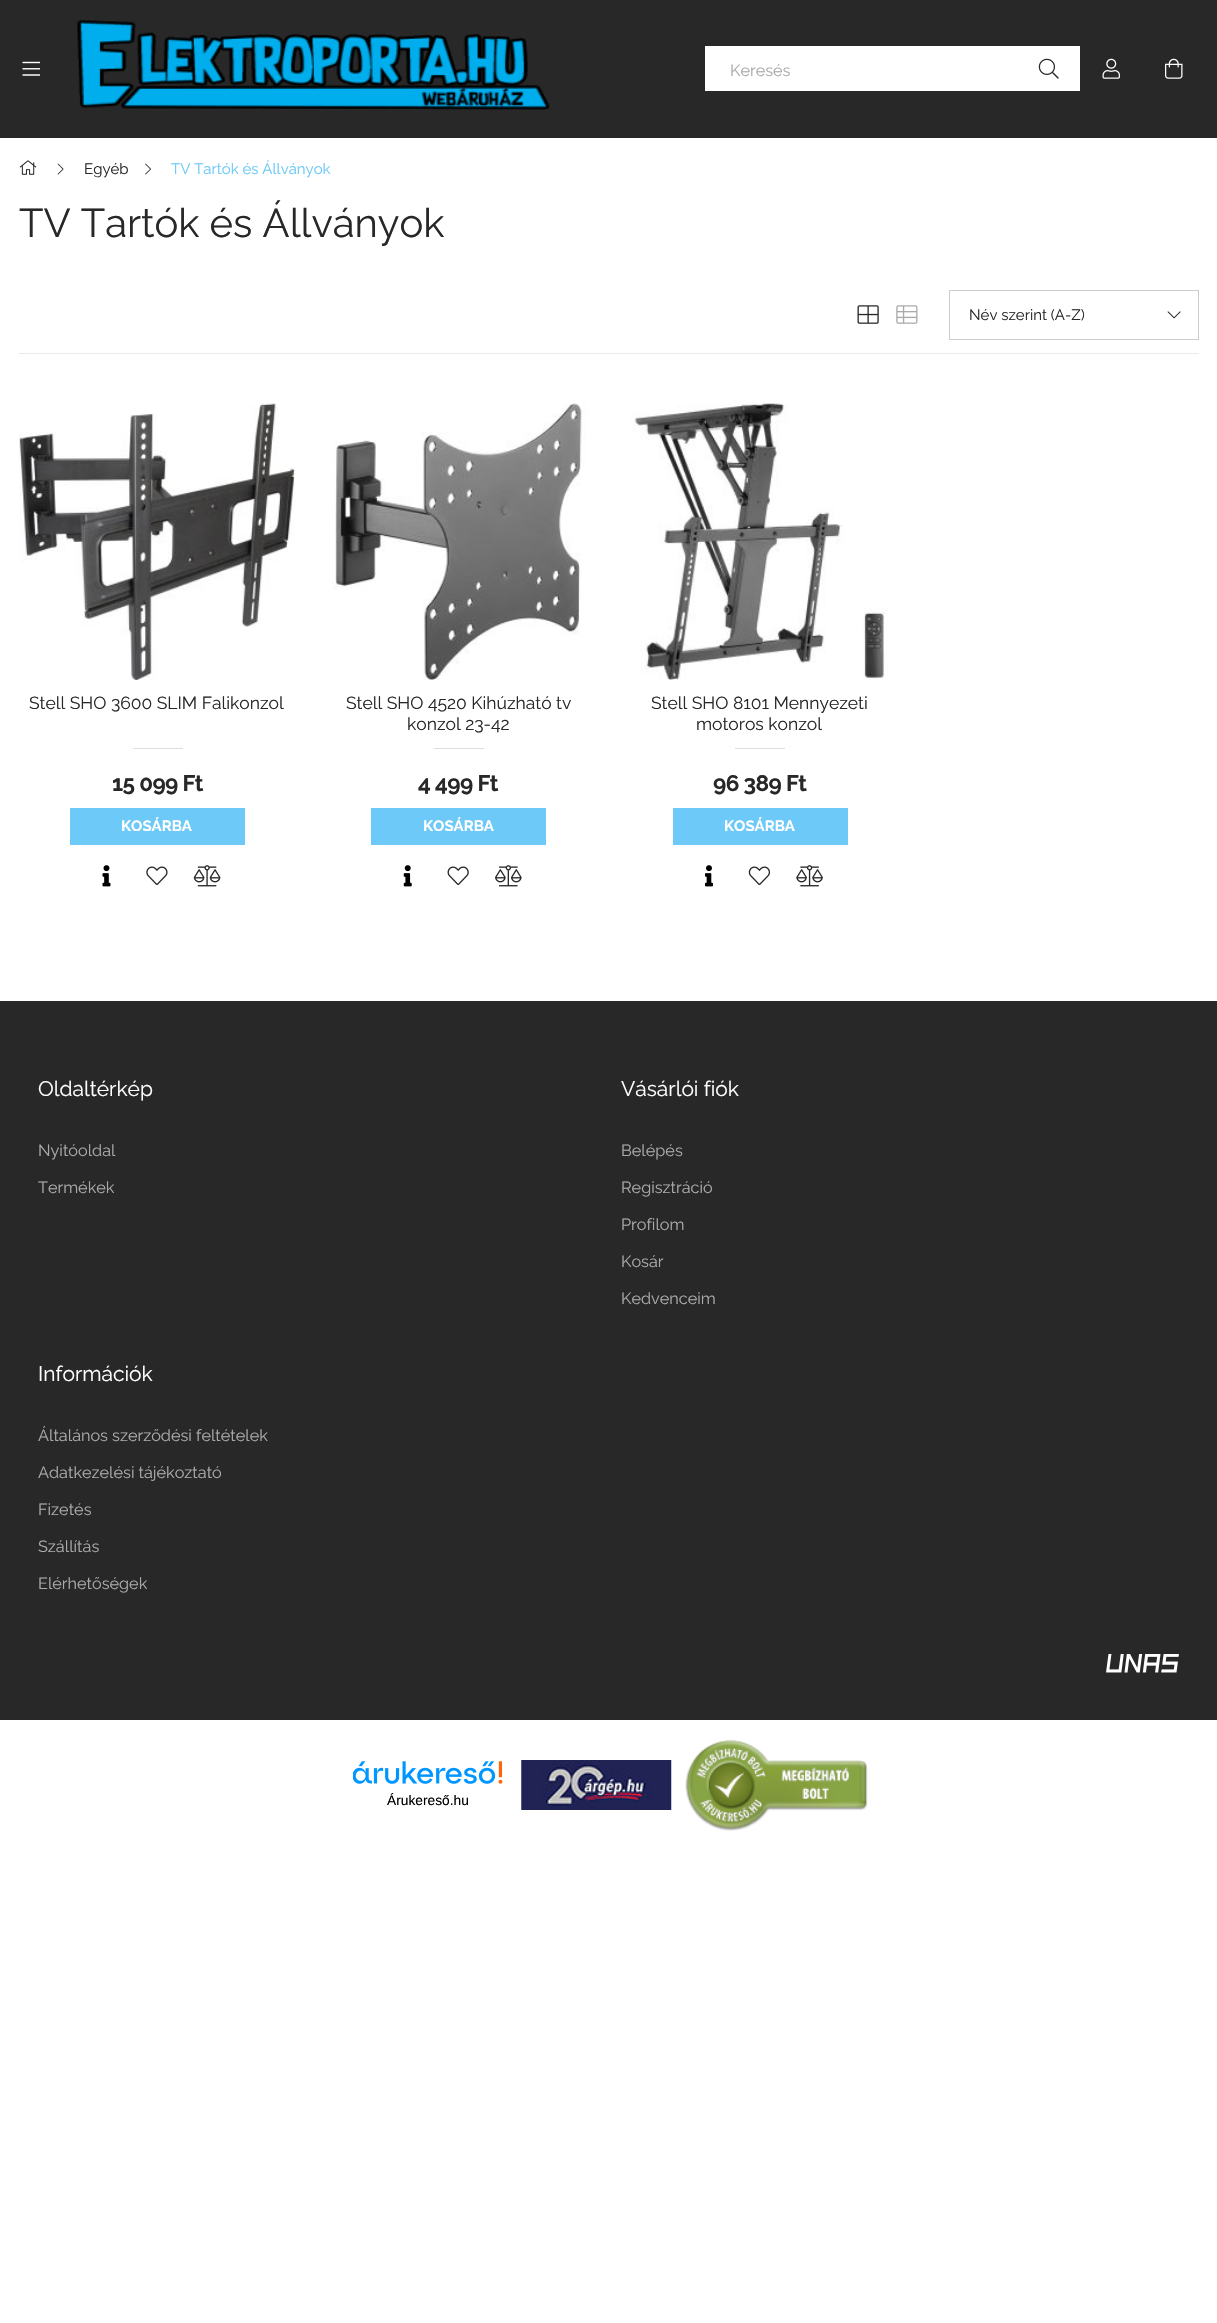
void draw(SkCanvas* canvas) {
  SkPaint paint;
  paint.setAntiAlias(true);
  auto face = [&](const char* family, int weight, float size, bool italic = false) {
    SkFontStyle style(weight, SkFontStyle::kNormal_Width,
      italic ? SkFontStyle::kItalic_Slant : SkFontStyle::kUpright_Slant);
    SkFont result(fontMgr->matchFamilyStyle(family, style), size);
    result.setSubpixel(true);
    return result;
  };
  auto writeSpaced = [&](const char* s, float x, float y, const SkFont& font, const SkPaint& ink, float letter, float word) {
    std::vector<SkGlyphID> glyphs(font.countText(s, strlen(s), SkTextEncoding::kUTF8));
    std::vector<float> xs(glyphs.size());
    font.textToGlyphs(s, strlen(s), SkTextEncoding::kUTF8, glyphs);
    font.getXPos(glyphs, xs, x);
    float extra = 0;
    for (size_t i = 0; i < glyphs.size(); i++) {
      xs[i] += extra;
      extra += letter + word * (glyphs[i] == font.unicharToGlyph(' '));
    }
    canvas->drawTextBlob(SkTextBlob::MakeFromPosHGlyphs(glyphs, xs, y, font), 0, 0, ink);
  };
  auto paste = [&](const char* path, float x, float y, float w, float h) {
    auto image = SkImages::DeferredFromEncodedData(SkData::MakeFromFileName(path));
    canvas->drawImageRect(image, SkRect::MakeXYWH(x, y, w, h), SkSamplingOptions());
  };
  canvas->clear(0xffffffff);
  paint.setColor(0xff282828);
  canvas->drawRect(SkRect::MakeXYWH(0, 0, 1217, 138), paint);
  paste("img/1.png", 22, 61, 18, 15);
  paste("img/2.png", 77, 20, 473, 90);
  paint.setColor(0xffffffff);
  canvas->drawRect(SkRect::MakeXYWH(705, 46, 375, 45), paint);
  paste("img/3.png", 1038, 58, 21, 21);
  paste("img/4.png", 1102, 58, 18, 21);
  paste("img/5.png", 1165, 58, 18, 21);
  paste("img/6.png", 19, 160, 18, 15);
  paste("img/7.png", 57, 163, 7, 12);
  paste("img/8.png", 145, 163, 6, 12);
  paint.setColor(0xffeaeaea);
  canvas->drawRect(SkRect::MakeXYWH(19, 353, 1180, 1), paint);
  paste("img/9.png", 857, 305, 22, 19);
  paste("img/10.png", 896, 305, 22, 19);
  paint.setStroke(true);
  paint.setStrokeWidth(1);
  paint.setColor(0xffcccccc);
  canvas->drawRect(SkRect::MakeXYWH(949.5f, 290.5f, 249, 49), paint);
  paste("img/11.png", 1167, 311, 14, 8);
  paste("img/12.png", 19, 403, 276, 277);
  paint.setStroke(false);
  paint.setColor(0xffdddddd);
  canvas->drawRect(SkRect::MakeXYWH(133, 748, 50, 1), paint);
  paint.setColor(0xff6dc9f7);
  canvas->drawRect(SkRect::MakeXYWH(70, 808, 175, 37), paint);
  paste("img/13.png", 102, 865, 9, 22);
  paste("img/14.png", 146, 866, 22, 19);
  paste("img/15.png", 193, 865, 28, 22);
  paste("img/16.png", 332, 403, 255, 277);
  paint.setColor(0xffdddddd);
  canvas->drawRect(SkRect::MakeXYWH(434, 748, 50, 1), paint);
  paint.setColor(0xff6dc9f7);
  canvas->drawRect(SkRect::MakeXYWH(371, 808, 175, 37), paint);
  paste("img/17.png", 403, 865, 9, 22);
  paste("img/18.png", 447, 866, 22, 20);
  paste("img/19.png", 495, 865, 27, 22);
  paste("img/20.png", 631, 403, 257, 277);
  paint.setColor(0xffdddddd);
  canvas->drawRect(SkRect::MakeXYWH(735, 748, 50, 1), paint);
  paint.setColor(0xff6dc9f7);
  canvas->drawRect(SkRect::MakeXYWH(673, 808, 175, 37), paint);
  paste("img/21.png", 705, 865, 8, 22);
  paste("img/22.png", 748, 866, 22, 20);
  paste("img/23.png", 796, 865, 27, 22);
  paint.setColor(0xff282828);
  canvas->drawRect(SkRect::MakeXYWH(0, 1001, 1217, 719), paint);
  paste("img/24.png", 1106, 1654, 73, 19);
  paste("img/25.png", 353, 1761, 150, 23);
  paste("img/26.png", 521, 1760, 151, 50);
  paste("img/27.png", 685, 1740, 183, 91);
  auto f0 = face("Raleway", 400, 16.25f);
  paint.setColor(0xffaaaaaa);
  canvas->drawString("Keresés", 730, 76, f0, paint);
  auto f1 = face("Raleway", 400, 15);
  paint.setColor(0xff282828);
  canvas->drawString("Egyéb", 84, 174, f1, paint);
  paint.setColor(0xff6dc9f7);
  canvas->drawString("TV Tartók és Állványok", 171, 174, f1, paint);
  auto f2 = face("Raleway", 400, 40);
  paint.setColor(0xff282828);
  canvas->drawString("TV Tartók és Állványok", 19, 237, f2, paint);
  canvas->drawString("Név szerint (A-Z)", 969, 320, f1, paint);
  auto f3 = face("Raleway", 400, 17.5f);
  canvas->drawString("Stell SHO 3600 SLIM Falikonzol", 29, 709, f3, paint);
  auto f4 = face("Raleway", 700, 22.5f);
  writeSpaced("15 099 Ft", 112, 791, f4, paint, -0.6f, 0);
  auto f5 = face("Raleway", 700, 15);
  paint.setColor(0xffffffff);
  canvas->drawString("KOSÁRBA", 121, 831, f5, paint);
  paint.setColor(0xff282828);
  canvas->drawString("Stell SHO 4520 Kihúzható tv", 346, 709, f3, paint);
  canvas->drawString("konzol 23-42", 407, 730, f3, paint);
  writeSpaced("4 499 Ft", 418, 791, f4, paint, -0.6f, 0);
  paint.setColor(0xffffffff);
  canvas->drawString("KOSÁRBA", 423, 831, f5, paint);
  paint.setColor(0xff282828);
  canvas->drawString("Stell SHO 8101 Mennyezeti", 651, 709, f3, paint);
  canvas->drawString("motoros konzol", 696, 730, f3, paint);
  writeSpaced("96 389 Ft", 713, 791, f4, paint, -0.6f, 0);
  paint.setColor(0xffffffff);
  canvas->drawString("KOSÁRBA", 724, 831, f5, paint);
  auto f6 = face("Raleway", 400, 21);
  canvas->drawString("Oldaltérkép", 38, 1096, f6, paint);
  paint.setColor(0xffaaaaaa);
  canvas->drawString("Nyitóoldal", 38, 1156, f0, paint);
  canvas->drawString("Termékek", 38, 1193, f0, paint);
  paint.setColor(0xffffffff);
  canvas->drawString("Vásárlói fiók", 621, 1096, f6, paint);
  paint.setColor(0xffaaaaaa);
  {
    const struct { const char* s; float x, y; } items[] = {
      {"Belépés", 621, 1156},
      {"Regisztráció", 621, 1193},
      {"Profilom", 621, 1230},
      {"Kosár", 621, 1267},
      {"Kedvenceim", 621, 1304},
    };
    for (auto [s, x, y] : items) {
      canvas->drawString(s, x, y, f0, paint);
    }
  }
  paint.setColor(0xffffffff);
  canvas->drawString("Információk", 38, 1381, f6, paint);
  paint.setColor(0xffaaaaaa);
  {
    const struct { const char* s; float x, y; } items[] = {
      {"Általános szerződési feltételek", 38, 1441},
      {"Adatkezelési tájékoztató", 38, 1478},
      {"Fizetés", 38, 1515},
      {"Szállítás", 38, 1552},
      {"Elérhetőségek", 38, 1589},
    };
    for (auto [s, x, y] : items) {
      canvas->drawString(s, x, y, f0, paint);
    }
  }
  auto f7 = face("Liberation Sans", 400, 13.75f);
  paint.setColor(0xff000000);
  canvas->drawString("Árukereső.hu", 387, 1805, f7, paint);
}
